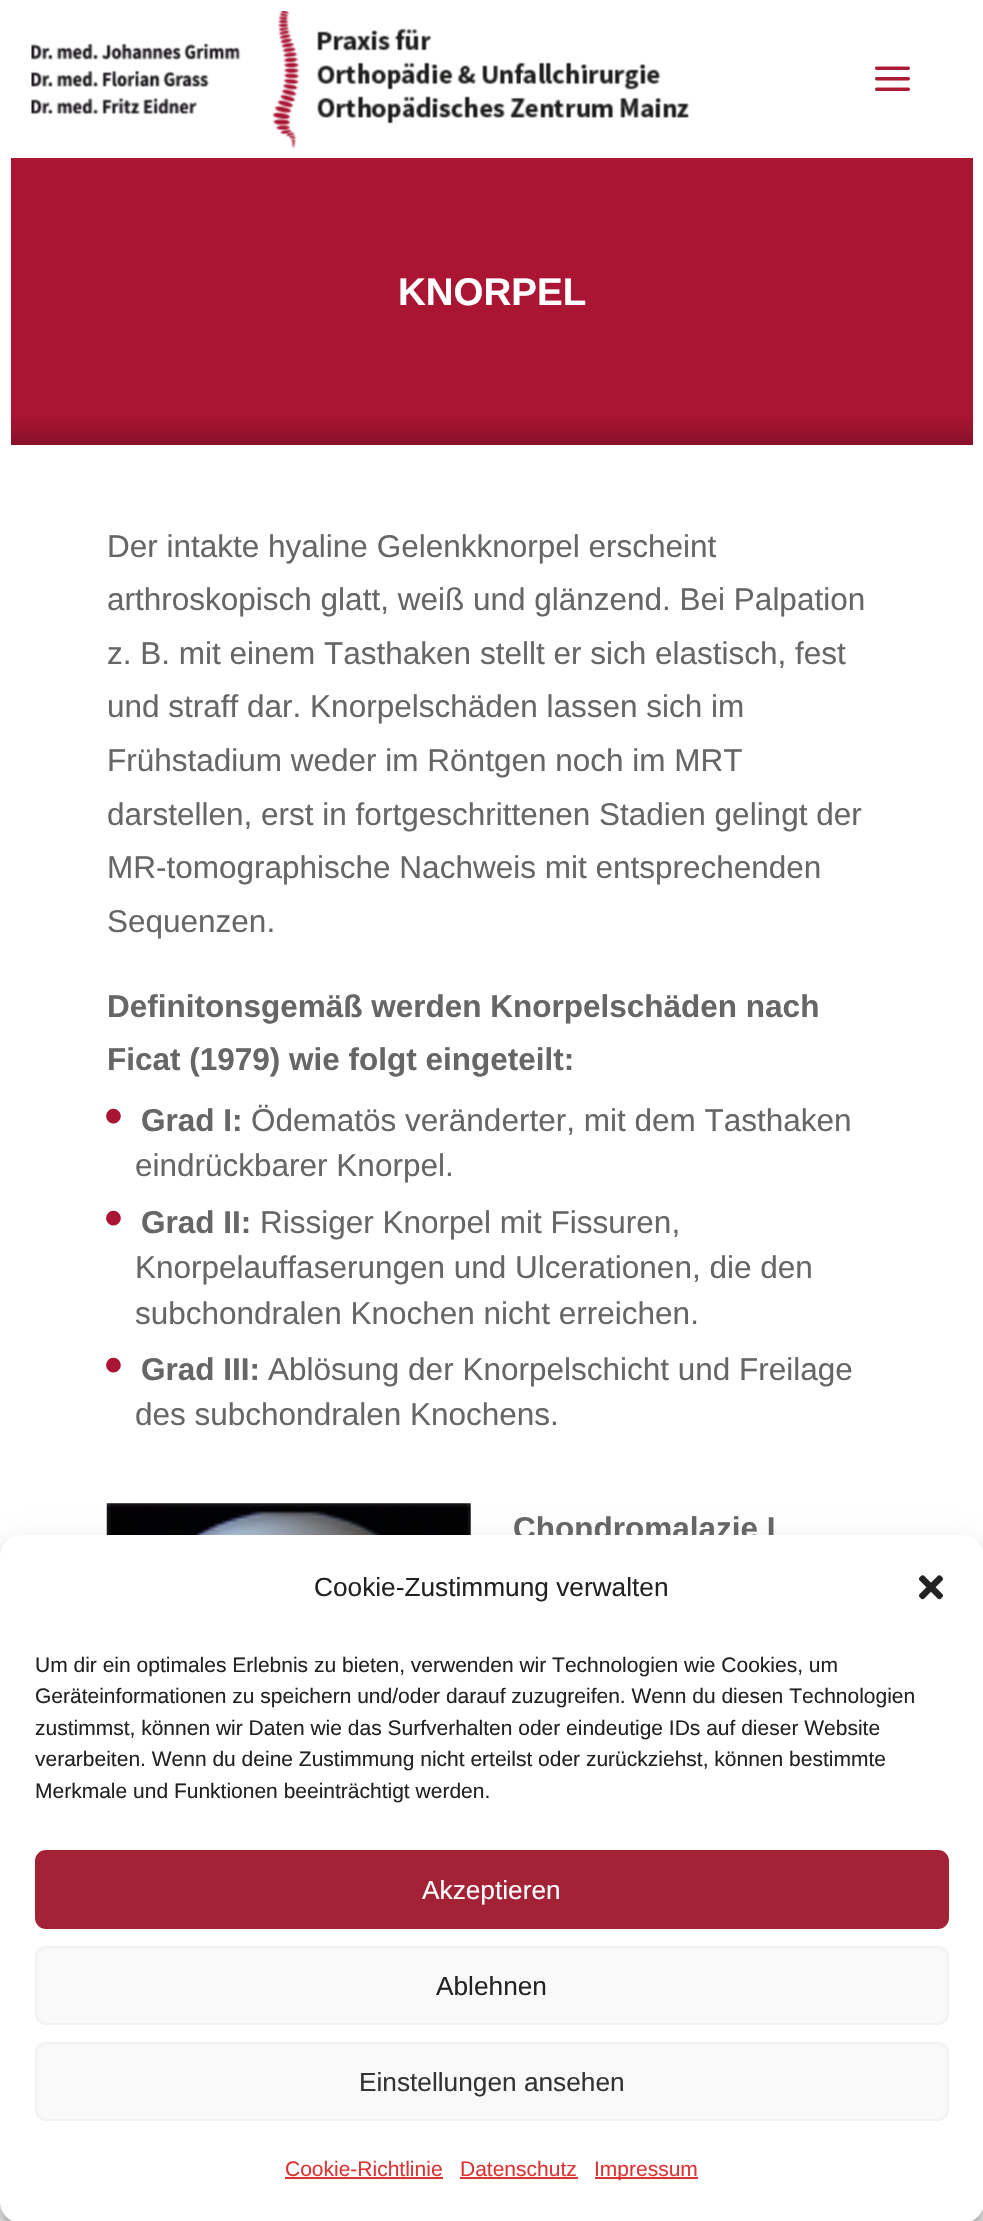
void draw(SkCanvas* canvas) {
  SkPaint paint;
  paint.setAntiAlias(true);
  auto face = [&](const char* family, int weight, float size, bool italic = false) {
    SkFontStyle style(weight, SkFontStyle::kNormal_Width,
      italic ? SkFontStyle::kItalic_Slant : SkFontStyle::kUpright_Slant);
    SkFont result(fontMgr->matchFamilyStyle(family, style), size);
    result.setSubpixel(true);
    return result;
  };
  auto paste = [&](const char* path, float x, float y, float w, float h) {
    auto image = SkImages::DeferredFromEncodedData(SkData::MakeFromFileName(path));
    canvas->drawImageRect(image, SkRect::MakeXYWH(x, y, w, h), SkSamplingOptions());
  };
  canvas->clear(0xffffffff);
  paste("img/1.png", 31, 11, 658, 137);
  paste("img/2.png", 875, 66, 35, 25);
  {
    const SkColor colors[] = {0xffaa1533, 0xff871028};
    const float stops[] = {0.9f, 1};
    const SkPoint ends[] = {{492, 157}, {492, 445}};
    paint.setShader(SkGradientShader::MakeLinear(ends, colors, stops, 2, SkTileMode::kClamp));
    paint.setAlpha(255);
  }
  canvas->drawRect(SkRect::MakeXYWH(11, 158, 962, 287), paint);
  paste("img/3.png", 106, 1503, 365, 32);
  paint.setShader(nullptr);
  paint.setColor(0x3b000000);
  paint.setMaskFilter(SkMaskFilter::MakeBlur(kNormal_SkBlurStyle, 5));
  canvas->drawRoundRect(SkRect::MakeXYWH(0, 1545, 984, 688), 21, 21, paint);
  paint.setMaskFilter(nullptr);
  paint.setColor(0x30000000);
  paint.setMaskFilter(SkMaskFilter::MakeBlur(kNormal_SkBlurStyle, 17.5f));
  canvas->drawRoundRect(SkRect::MakeXYWH(0, 1552, 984, 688), 21, 21, paint);
  paint.setMaskFilter(nullptr);
  auto f0 = face("Liberation Sans", 700, 38.5f);
  paint.setColor(0xffffffff);
  canvas->drawString("KNORPEL", 398, 305, f0, paint);
  auto f1 = face("Liberation Sans", 400, 31.5f);
  paint.setColor(0xff666666);
  {
    const struct { const char* s; float x, y; } items[] = {
      {"Der intakte hyaline Gelenkknorpel erscheint", 107, 557},
      {"arthroskopisch glatt, weiß und glänzend. Bei Palpation", 107, 610},
      {"z. B. mit einem Tasthaken stellt er sich elastisch, fest", 107, 664},
      {"und straff dar. Knorpelschäden lassen sich im", 107, 717},
      {"Frühstadium weder im Röntgen noch im MRT", 107, 771},
      {"darstellen, erst in fortgeschrittenen Stadien gelingt der", 107, 825},
      {"MR-tomographische Nachweis mit entsprechenden", 107, 878},
      {"Sequenzen.", 107, 932},
    };
    for (auto [s, x, y] : items) {
      canvas->drawString(s, x, y, f1, paint);
    }
  }
  auto f2 = face("Liberation Sans", 700, 31.5f);
  canvas->drawString("Definitonsgemäß werden Knorpelschäden nach", 107, 1017, f2, paint);
  canvas->drawString("Ficat (1979) wie folgt eingeteilt:", 107, 1070, f2, paint);
  auto f3 = face("Liberation Sans", 400, 54);
  paint.setColor(0xffaa1533);
  canvas->drawString("•", 104, 1134, f3, paint);
  paint.setColor(0xff666666);
  canvas->drawString("Grad I:", 141, 1131, f2, paint);
  canvas->drawString("Ödematös veränderter, mit dem Tasthaken", 251, 1131, f1, paint);
  canvas->drawString("eindrückbarer Knorpel.", 135, 1176, f1, paint);
  paint.setColor(0xffaa1533);
  canvas->drawString("•", 104, 1236, f3, paint);
  paint.setColor(0xff666666);
  canvas->drawString("Grad II:", 141, 1233, f2, paint);
  {
    const struct { const char* s; float x, y; } items[] = {
      {"Rissiger Knorpel mit Fissuren,", 260, 1233},
      {"Knorpelauffaserungen und Ulcerationen, die den", 135, 1278},
      {"subchondralen Knochen nicht erreichen.", 135, 1324},
    };
    for (auto [s, x, y] : items) {
      canvas->drawString(s, x, y, f1, paint);
    }
  }
  paint.setColor(0xffaa1533);
  canvas->drawString("•", 104, 1383, f3, paint);
  paint.setColor(0xff666666);
  canvas->drawString("Grad III:", 141, 1380, f2, paint);
  canvas->drawString("Ablösung der Knorpelschicht und Freilage", 268, 1380, f1, paint);
  canvas->drawString("des subchondralen Knochens.", 135, 1425, f1, paint);
  canvas->drawString("Chondromalazie I", 513, 1539, f2, paint);
  paint.setColor(0xffffffff);
  canvas->drawRoundRect(SkRect::MakeXYWH(0, 1535, 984, 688), 21, 21, paint);
  auto f4 = face("Liberation Sans", 400, 26.25f);
  paint.setColor(0xff222222);
  canvas->drawString("Cookie-Zustimmung verwalten", 314, 1596, f4, paint);
  paste("img/4.png", 919, 1575, 24, 25);
  auto f5 = face("Liberation Sans", 400, 21);
  {
    const struct { const char* s; float x, y; } items[] = {
      {"Um dir ein optimales Erlebnis zu bieten, verwenden wir Technologien wie Cookies, um", 35, 1672},
      {"Geräteinformationen zu speichern und/oder darauf zuzugreifen. Wenn du diesen Technologien", 35, 1703},
      {"zustimmst, können wir Daten wie das Surfverhalten oder eindeutige IDs auf dieser Website", 35, 1735},
      {"verarbeiten. Wenn du deine Zustimmung nicht erteilst oder zurückziehst, können bestimmte", 35, 1766},
      {"Merkmale und Funktionen beeinträchtigt werden.", 35, 1798},
    };
    for (auto [s, x, y] : items) {
      canvas->drawString(s, x, y, f5, paint);
    }
  }
  paint.setColor(0xffa42235);
  canvas->drawRoundRect(SkRect::MakeXYWH(36, 1851, 912, 77), 10, 10, paint);
  paint.setStroke(true);
  paint.setStrokeWidth(2);
  canvas->drawRoundRect(SkRect::MakeXYWH(36, 1851, 912, 77), 10, 10, paint);
  paint.setStroke(false);
  paint.setColor(0xffffffff);
  canvas->drawString("Akzeptieren", 422, 1899, f4, paint);
  paint.setColor(0xfff9f9f9);
  canvas->drawRoundRect(SkRect::MakeXYWH(36, 1947, 912, 77), 10, 10, paint);
  paint.setStroke(true);
  paint.setColor(0xfff2f2f2);
  canvas->drawRoundRect(SkRect::MakeXYWH(36, 1947, 912, 77), 10, 10, paint);
  paint.setStroke(false);
  paint.setColor(0xff222222);
  canvas->drawString("Ablehnen", 436, 1995, f4, paint);
  paint.setColor(0xfff9f9f9);
  canvas->drawRoundRect(SkRect::MakeXYWH(36, 2043, 912, 77), 10, 10, paint);
  paint.setStroke(true);
  paint.setColor(0xfff2f2f2);
  canvas->drawRoundRect(SkRect::MakeXYWH(36, 2043, 912, 77), 10, 10, paint);
  paint.setStroke(false);
  paint.setColor(0xff333333);
  canvas->drawString("Einstellungen ansehen", 359, 2091, f4, paint);
  paint.setColor(0xffdd3333);
  canvas->drawString("Cookie-Richtlinie", 285, 2176, f5, paint);
  canvas->drawRect(SkRect::MakeXYWH(285, 2177, 158, 2), paint);
  canvas->drawString("Datenschutz", 460, 2176, f5, paint);
  canvas->drawRect(SkRect::MakeXYWH(460, 2177, 118, 2), paint);
  canvas->drawRect(SkRect::MakeXYWH(595, 2177, 103, 2), paint);
  canvas->drawString("Impressum", 594, 2176, f5, paint);
}
